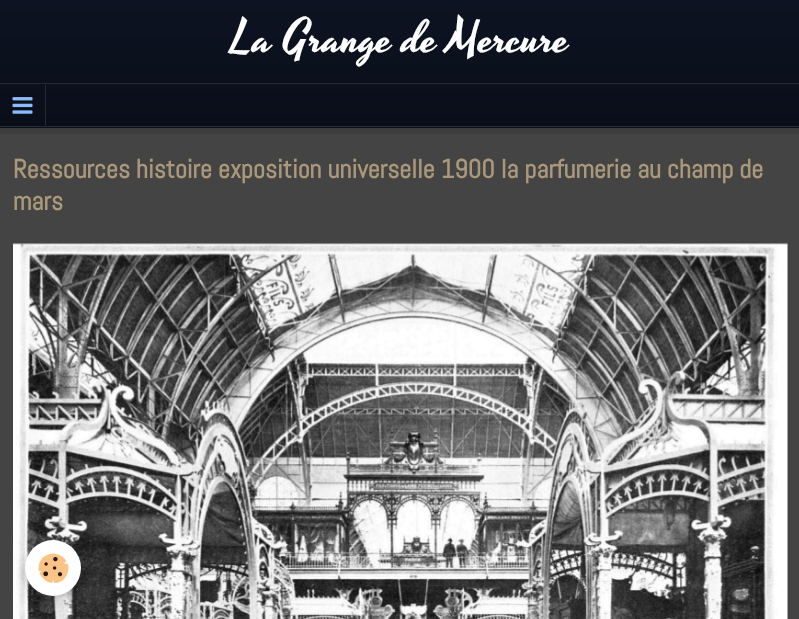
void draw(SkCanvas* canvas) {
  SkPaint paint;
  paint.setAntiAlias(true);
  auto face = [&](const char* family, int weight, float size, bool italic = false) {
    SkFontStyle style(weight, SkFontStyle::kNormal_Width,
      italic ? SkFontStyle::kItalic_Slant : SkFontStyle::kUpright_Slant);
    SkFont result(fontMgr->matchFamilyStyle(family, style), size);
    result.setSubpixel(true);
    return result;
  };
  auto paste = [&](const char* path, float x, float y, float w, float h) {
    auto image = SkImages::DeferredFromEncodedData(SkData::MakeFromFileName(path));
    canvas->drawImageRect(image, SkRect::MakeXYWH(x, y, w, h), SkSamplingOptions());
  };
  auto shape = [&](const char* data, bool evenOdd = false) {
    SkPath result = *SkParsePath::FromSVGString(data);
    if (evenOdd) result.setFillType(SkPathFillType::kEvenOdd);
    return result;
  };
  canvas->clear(0xff444444);
  paint.setColor(0xff3d3d3d);
  canvas->drawRect(SkRect::MakeXYWH(0, 128, 799, 6), paint);
  {
    const SkColor colors[] = {0xff0d1322, 0xff0a0e19};
    const float stops[] = {0, 1};
    const SkPoint ends[] = {{400, 0}, {400, 128}};
    paint.setShader(SkGradientShader::MakeLinear(ends, colors, stops, 2, SkTileMode::kClamp));
    paint.setAlpha(255);
  }
  canvas->drawRect(SkRect::MakeXYWH(0, 0, 799, 128), paint);
  paint.setShader(nullptr);
  paint.setColor(0xff242a39);
  canvas->drawRect(SkRect::MakeXYWH(0, 83, 799, 1), paint);
  canvas->drawRect(SkRect::MakeXYWH(0, 126, 799, 1), paint);
  canvas->drawPath(shape("M46 84V126L45 125V85Z"), paint);
  paste("img/1.png", 12, 97, 21, 17);
  paste("img/2.png", 13, 243, 775, 376);
  paint.setColor(0x3d000000);
  paint.setMaskFilter(SkMaskFilter::MakeBlur(kNormal_SkBlurStyle, 6));
  canvas->drawRoundRect(SkRect::MakeXYWH(25, 544, 56, 56), 28, 28, paint);
  paint.setMaskFilter(nullptr);
  paint.setColor(0xffffffff);
  canvas->drawCircle(53, 568, 28, paint);
  paste("img/3.png", 38, 553, 31, 30);
  auto f0 = face("Yesteryear", 400, 45.5f);
  canvas->drawString("La Grange de Mercure", 231, 51, f0, paint);
  auto f1 = face("Abel", 700, 26.25f);
  paint.setColor(0xffab987a);
  canvas->drawString("Ressources histoire exposition universelle 1900 la parfumerie au champ de", 13, 178, f1, paint);
  canvas->drawString("mars", 13, 210, f1, paint);
}
